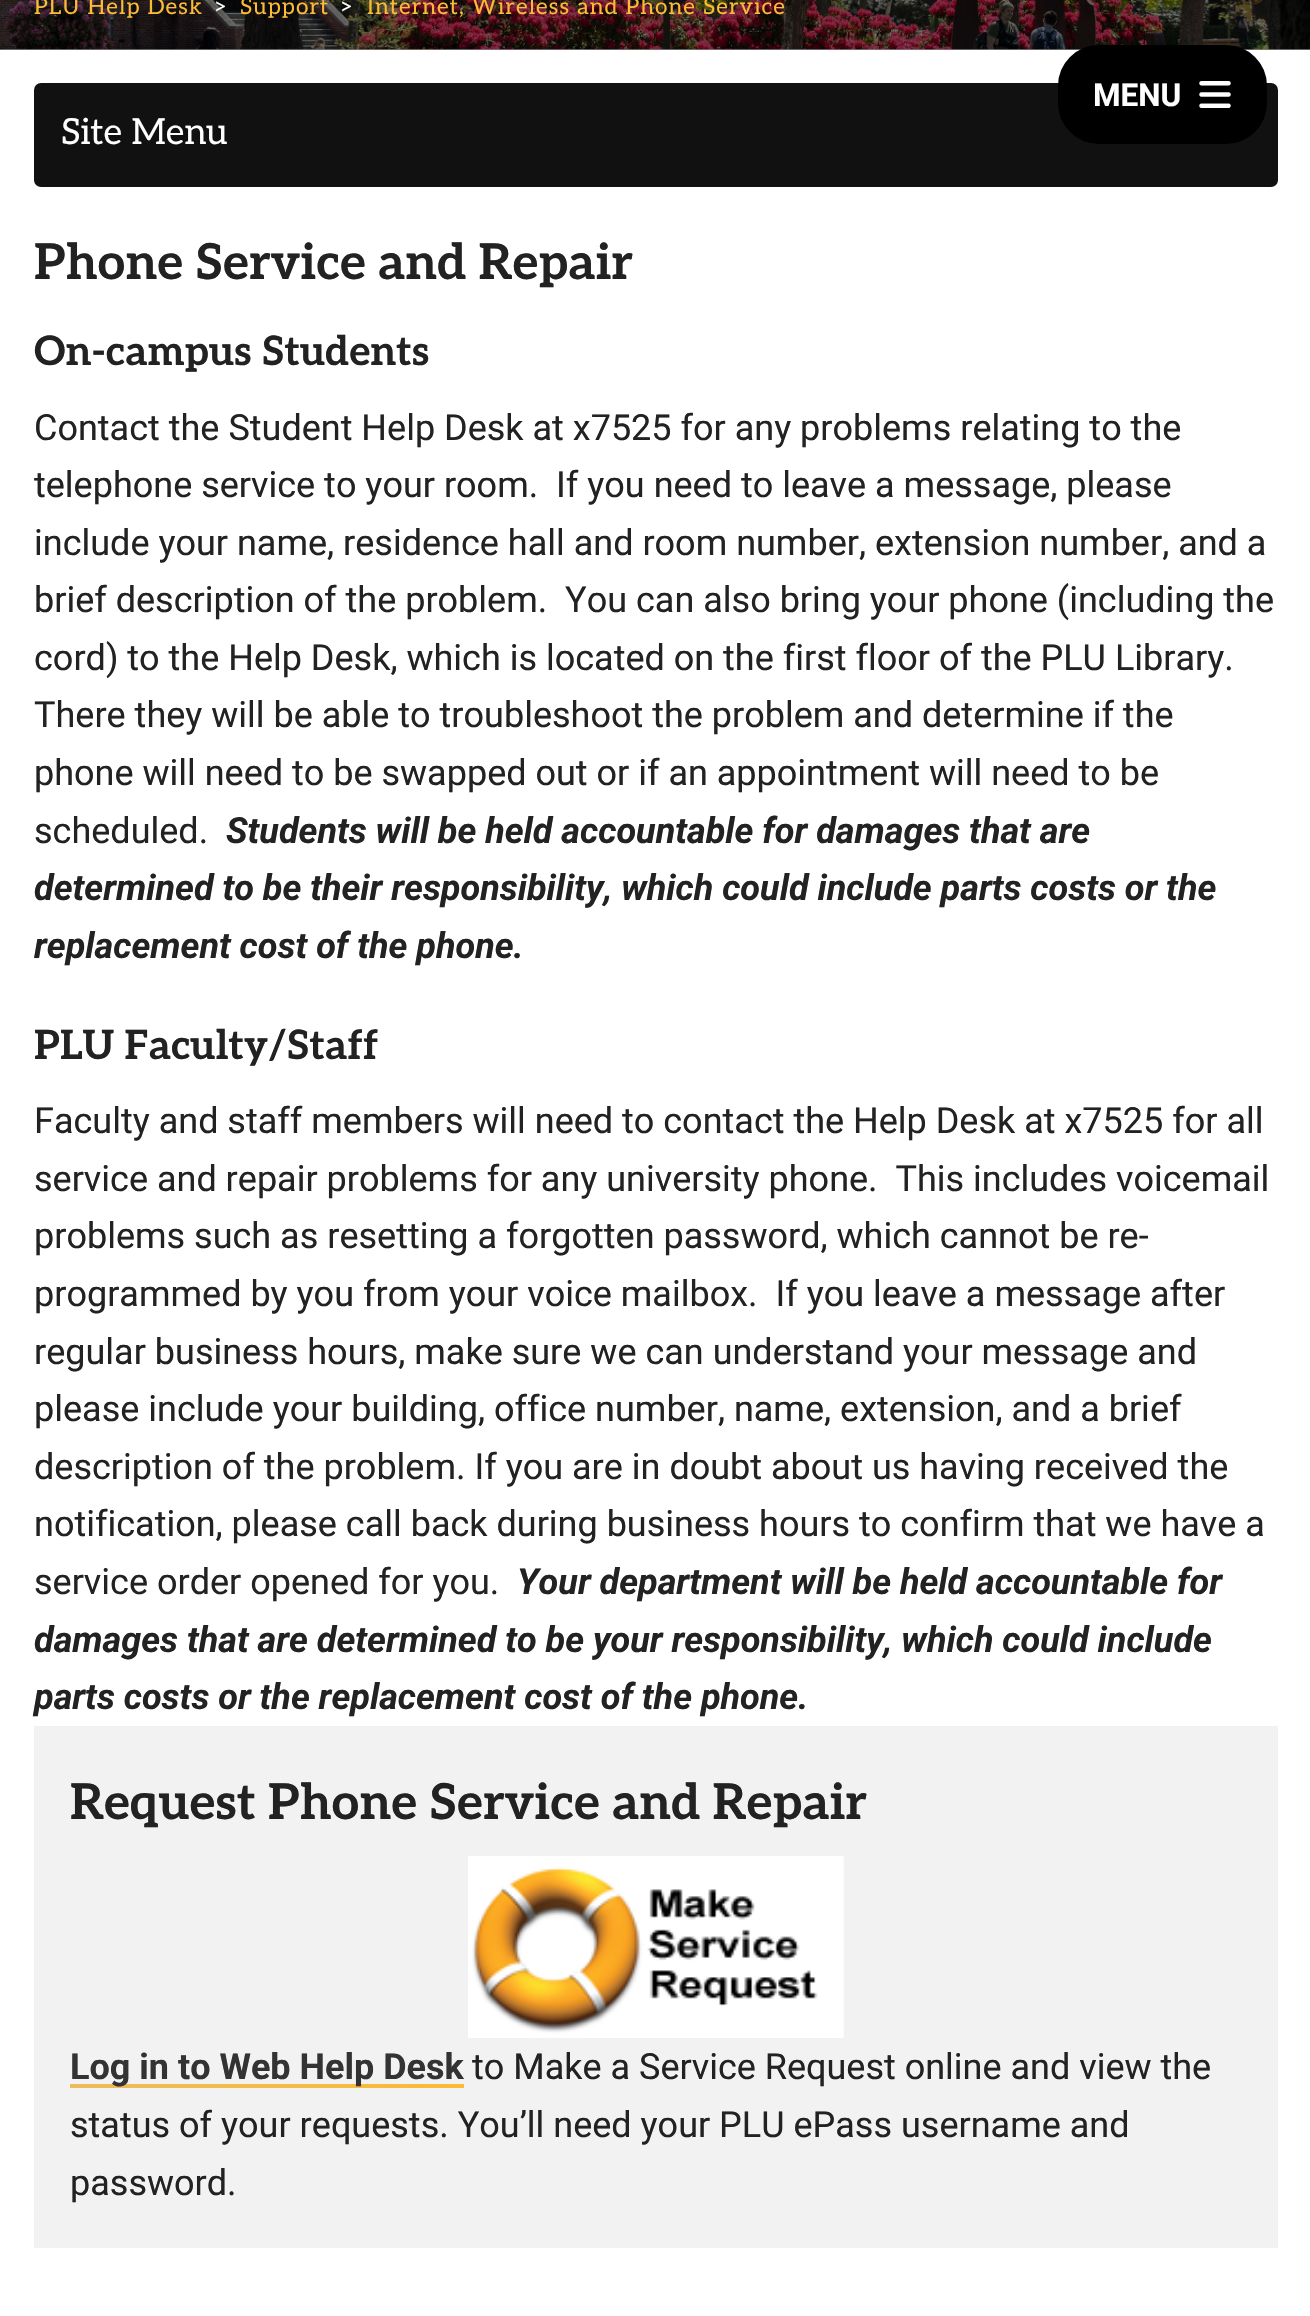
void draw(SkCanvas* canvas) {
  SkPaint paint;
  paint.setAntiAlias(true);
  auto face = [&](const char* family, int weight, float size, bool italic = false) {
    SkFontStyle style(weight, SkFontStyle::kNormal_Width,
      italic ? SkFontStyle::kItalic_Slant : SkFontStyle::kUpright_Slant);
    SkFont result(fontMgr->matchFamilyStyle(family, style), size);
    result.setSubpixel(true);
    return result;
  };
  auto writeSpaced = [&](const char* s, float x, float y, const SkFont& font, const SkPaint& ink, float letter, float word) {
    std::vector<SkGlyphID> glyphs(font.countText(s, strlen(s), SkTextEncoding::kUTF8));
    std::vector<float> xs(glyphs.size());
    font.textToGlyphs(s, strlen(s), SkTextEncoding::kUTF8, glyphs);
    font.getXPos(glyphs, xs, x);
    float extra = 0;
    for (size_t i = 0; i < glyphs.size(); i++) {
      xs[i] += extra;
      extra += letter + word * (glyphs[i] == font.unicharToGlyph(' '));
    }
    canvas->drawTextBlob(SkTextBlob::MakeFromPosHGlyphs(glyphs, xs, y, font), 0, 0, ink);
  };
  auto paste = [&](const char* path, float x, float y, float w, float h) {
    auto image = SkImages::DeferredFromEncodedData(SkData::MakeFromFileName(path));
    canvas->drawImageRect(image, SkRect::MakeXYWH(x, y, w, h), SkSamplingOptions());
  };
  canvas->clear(0xffffffff);
  paint.setColor(0xff808080);
  canvas->drawRect(SkRect::MakeXYWH(0, 49, 1310, 1), paint);
  paste("img/1.png", 0, 0, 1310, 50);
  paint.setColor(0xff111111);
  canvas->drawRoundRect(SkRect::MakeXYWH(34, 83, 1244, 104), 7, 7, paint);
  paste("img/2.png", 1245, 138, 1, 1);
  paint.setColor(0xfff2f2f2);
  canvas->drawRect(SkRect::MakeXYWH(34, 1726, 1244, 522), paint);
  paste("img/3.png", 468, 1856, 376, 182);
  {
    const SkColor colors[] = {0xffecbc5b, 0xfffbba37};
    const float stops[] = {0, 1};
    const SkPoint ends[] = {{70, 2086}, {464, 2086}};
    paint.setShader(SkGradientShader::MakeLinear(ends, colors, stops, 2, SkTileMode::kClamp));
    paint.setAlpha(255);
  }
  canvas->drawRect(SkRect::MakeXYWH(70, 2084, 394, 4), paint);
  paint.setShader(nullptr);
  paint.setColor(0xff000000);
  canvas->drawRoundRect(SkRect::MakeXYWH(1060.5f, 47.5f, 204, 94), 38.5f, 38.5f, paint);
  paint.setStroke(true);
  paint.setStrokeWidth(5);
  canvas->drawRoundRect(SkRect::MakeXYWH(1060.5f, 47.5f, 204, 94), 38.5f, 38.5f, paint);
  paste("img/4.png", 1199, 81, 32, 27);
  auto f0 = face("Aleo", 400, 22.5f);
  paint.setStroke(false);
  paint.setColor(0xfffbba37);
  writeSpaced("PLU Help Desk", 34, 14, f0, paint, 1.1f, 0);
  paint.setColor(0xffffffff);
  writeSpaced(">", 215, 14, f0, paint, 1.1f, 0);
  paint.setColor(0xfffbba37);
  writeSpaced("Support", 240, 14, f0, paint, 1.1f, 0);
  paint.setColor(0xffffffff);
  writeSpaced(">", 341, 14, f0, paint, 1.1f, 0);
  paint.setColor(0xfffbba37);
  writeSpaced("Internet, Wireless and Phone Service", 367, 14, f0, paint, 1.1f, 0);
  auto f1 = face("Aleo", 400, 36);
  paint.setColor(0xffffffff);
  canvas->drawString("Site Menu", 61, 144, f1, paint);
  auto f2 = face("Aleo", 700, 49.5f);
  paint.setColor(0xff222222);
  canvas->drawString("Phone Service and Repair", 34, 279, f2, paint);
  auto f3 = face("Aleo", 700, 40.5f);
  canvas->drawString("On-campus Students", 34, 365, f3, paint);
  auto f4 = face("Roboto", 400, 36);
  {
    const struct { const char* s; float x, y; } items[] = {
      {"Contact the Student Help Desk at x7525 for any problems relating to the", 34, 440},
      {"telephone service to your room.  If you need to leave a message, please", 34, 497},
      {"include your name, residence hall and room number, extension number, and a", 34, 555},
      {"brief description of the problem.  You can also bring your phone (including the", 34, 612},
      {"cord) to the Help Desk, which is located on the first floor of the PLU Library.", 34, 670},
      {"There they will be able to troubleshoot the problem and determine if the", 34, 727},
      {"phone will need to be swapped out or if an appointment will need to be", 34, 785},
      {"scheduled.", 34, 843},
    };
    for (auto [s, x, y] : items) {
      canvas->drawString(s, x, y, f4, paint);
    }
  }
  auto f5 = face("Roboto", 700, 36, true);
  {
    const struct { const char* s; float x, y; } items[] = {
      {"Students will be held accountable for damages that are", 226, 843},
      {"determined to be their responsibility, which could include parts costs or the", 34, 900},
      {"replacement cost of the phone.", 34, 958},
    };
    for (auto [s, x, y] : items) {
      canvas->drawString(s, x, y, f5, paint);
    }
  }
  canvas->drawString("PLU Faculty/Staff", 34, 1059, f3, paint);
  {
    const struct { const char* s; float x, y; } items[] = {
      {"Faculty and staff members will need to contact the Help Desk at x7525 for all", 34, 1133},
      {"service and repair problems for any university phone.  This includes voicemail", 34, 1191},
      {"problems such as resetting a forgotten password, which cannot be re-", 34, 1248},
      {"programmed by you from your voice mailbox.  If you leave a message after", 34, 1306},
      {"regular business hours, make sure we can understand your message and", 34, 1364},
      {"please include your building, office number, name, extension, and a brief", 34, 1421},
      {"description of the problem. If you are in doubt about us having received the", 34, 1479},
      {"notification, please call back during business hours to confirm that we have a", 34, 1536},
      {"service order opened for you.", 34, 1594},
    };
    for (auto [s, x, y] : items) {
      canvas->drawString(s, x, y, f4, paint);
    }
  }
  {
    const struct { const char* s; float x, y; } items[] = {
      {"Your department will be held accountable for", 517, 1594},
      {"damages that are determined to be your responsibility, which could include", 34, 1652},
      {"parts costs or the replacement cost of the phone.", 34, 1709},
    };
    for (auto [s, x, y] : items) {
      canvas->drawString(s, x, y, f5, paint);
    }
  }
  canvas->drawString("Request Phone Service and Repair", 70, 1819, f2, paint);
  auto f6 = face("Roboto", 700, 36);
  paint.setColor(0xff333333);
  canvas->drawString("Log in to Web Help Desk", 70, 2079, f6, paint);
  paint.setColor(0xff222222);
  {
    const struct { const char* s; float x, y; } items[] = {
      {"to Make a Service Request online and view the", 472, 2079},
      {"status of your requests. You’ll need your PLU ePass username and", 70, 2137},
      {"password.", 70, 2195},
    };
    for (auto [s, x, y] : items) {
      canvas->drawString(s, x, y, f4, paint);
    }
  }
  auto f7 = face("Roboto", 700, 31.5f);
  paint.setColor(0xffffffff);
  canvas->drawString("MENU", 1093, 106, f7, paint);
}
